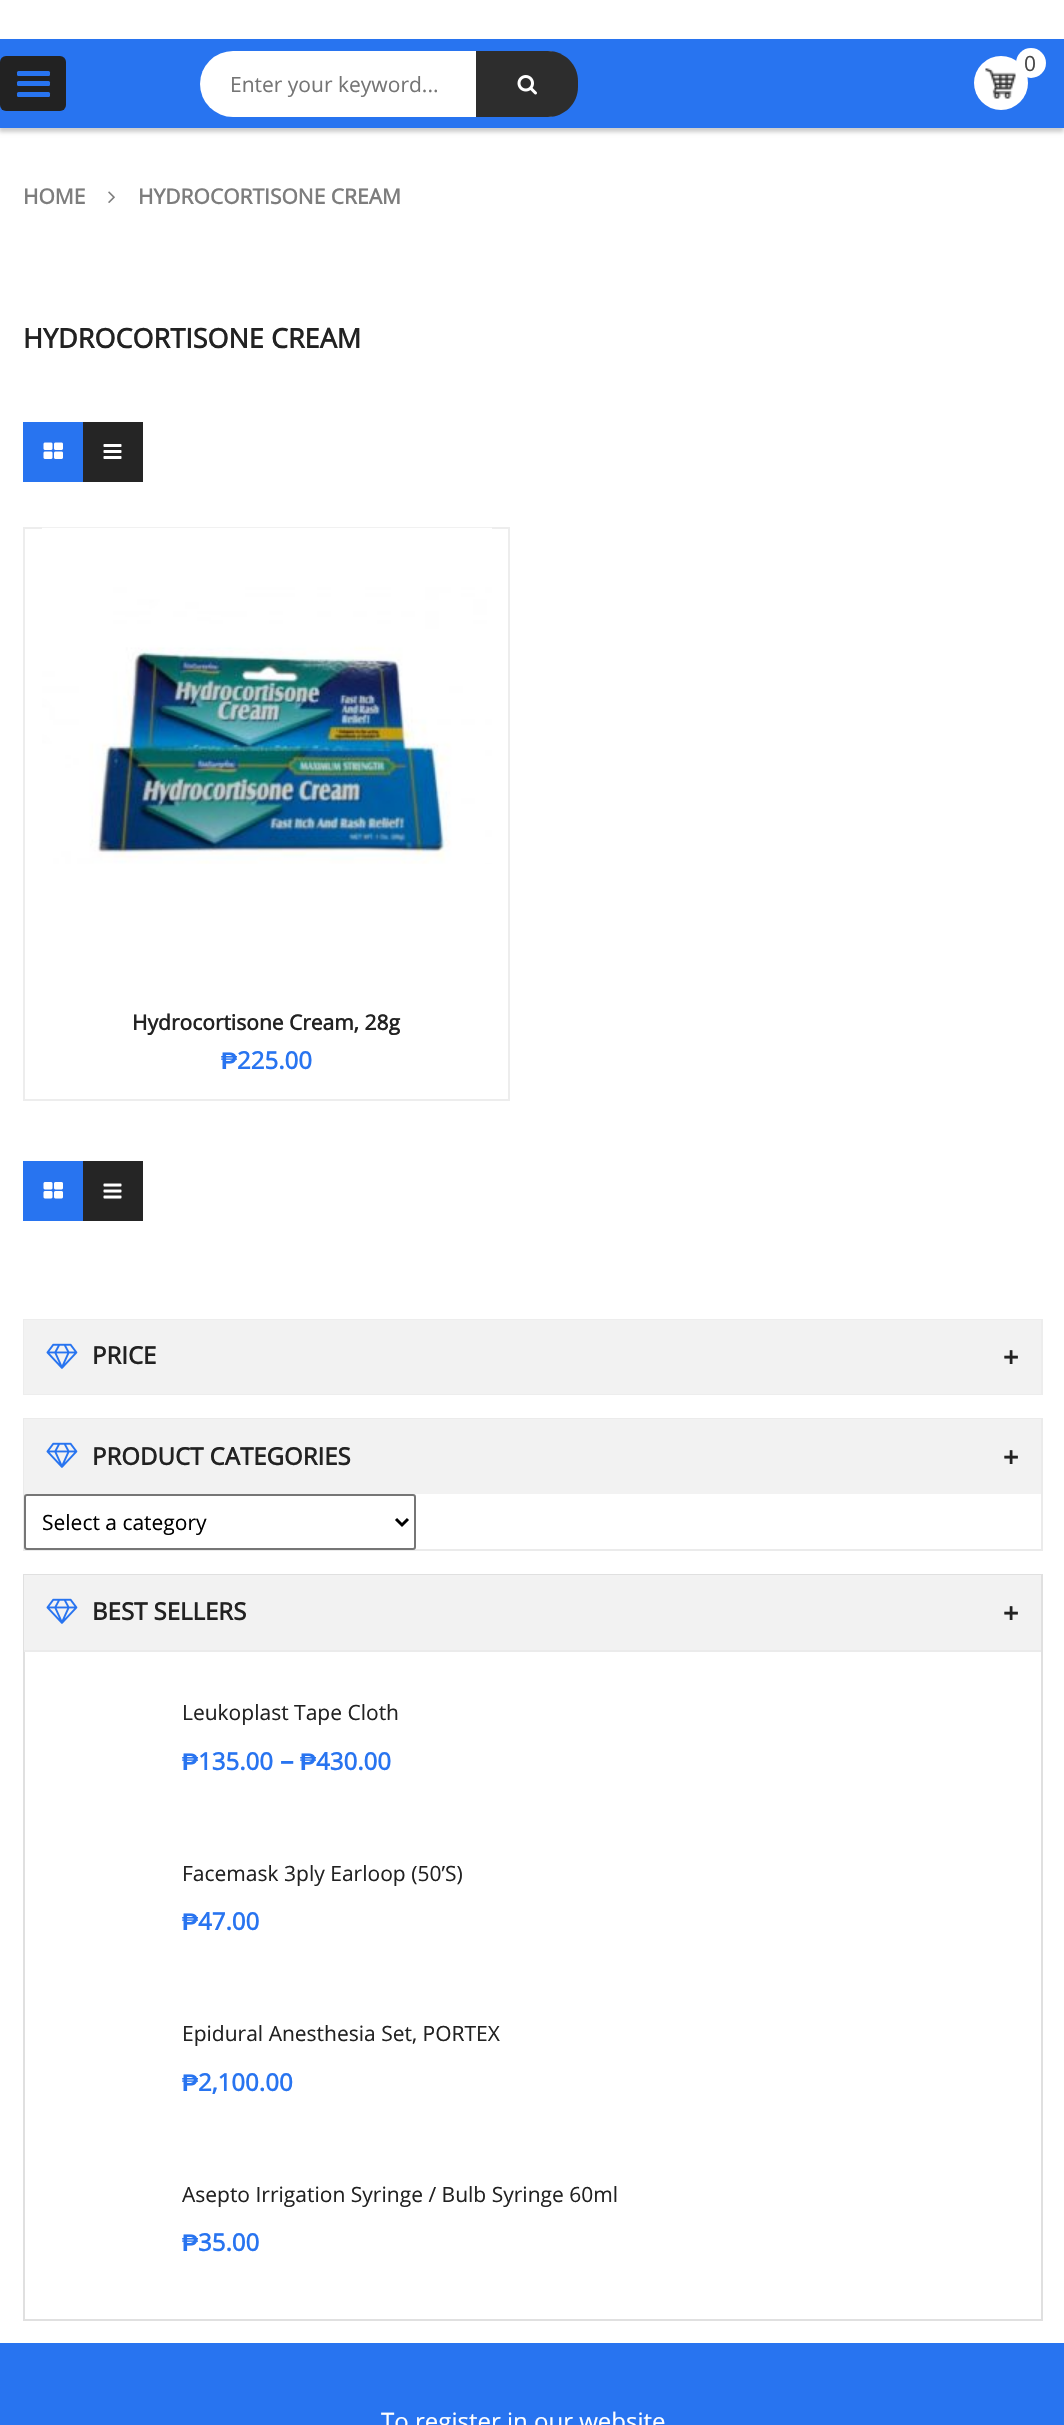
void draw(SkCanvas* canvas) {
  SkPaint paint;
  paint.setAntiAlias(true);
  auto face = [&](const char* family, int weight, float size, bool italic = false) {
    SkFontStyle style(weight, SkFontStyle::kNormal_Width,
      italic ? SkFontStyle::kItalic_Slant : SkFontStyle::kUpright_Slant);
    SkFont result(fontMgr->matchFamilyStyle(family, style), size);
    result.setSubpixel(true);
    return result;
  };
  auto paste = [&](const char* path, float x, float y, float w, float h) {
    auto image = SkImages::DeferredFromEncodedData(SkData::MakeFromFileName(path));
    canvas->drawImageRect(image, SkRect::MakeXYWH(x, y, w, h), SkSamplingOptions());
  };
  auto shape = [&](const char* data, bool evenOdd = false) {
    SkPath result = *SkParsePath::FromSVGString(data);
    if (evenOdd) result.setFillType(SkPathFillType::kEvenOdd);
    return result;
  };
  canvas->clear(0xffffffff);
  paint.setColor(0x33000000);
  paint.setMaskFilter(SkMaskFilter::MakeBlur(kNormal_SkBlurStyle, 2));
  canvas->drawRect(SkRect::MakeXYWH(-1, 44, 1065, 88), paint);
  paint.setMaskFilter(nullptr);
  paint.setColor(0xff2874f0);
  canvas->drawRect(SkRect::MakeXYWH(0, 39, 1064, 89), paint);
  paint.setColor(0xff222222);
  canvas->drawRoundRect(SkRect::MakeXYWH(0, 56, 66, 55), 6, 6, paint);
  paint.setColor(0xff2874f0);
  canvas->drawRoundRect(SkRect::MakeXYWH(17, 71, 33, 5), 1.5f, 1.5f, paint);
  canvas->drawRoundRect(SkRect::MakeXYWH(17, 81, 33, 5), 1.5f, 1.5f, paint);
  canvas->drawRoundRect(SkRect::MakeXYWH(17, 92, 33, 5), 1.5f, 1.5f, paint);
  paint.setColor(0xffffffff);
  canvas->drawRoundRect(SkRect::MakeXYWH(200, 51, 375, 66), 33, 33, paint);
  canvas->drawRoundRect(SkRect::MakeXYWH(230, 51, 345, 66), 30, 30, paint);
  paint.setColor(0xff2d2d2d);
  canvas->drawPath(shape("M476 51H548C564.5 51 578 64.5 578 81V87C578 103.5 564.5 117 548 117H476Z"), paint);
  paste("img/1.png", 517, 75, 20, 20);
  paint.setColor(0xffffffff);
  canvas->drawCircle(1001, 83, 27, paint);
  paste("img/2.png", 985, 68, 31, 31);
  canvas->drawCircle(1031, 63, 15, paint);
  paste("img/3.png", 108, 191, 7, 12);
  paint.setColor(0xff2874f0);
  canvas->drawRect(SkRect::MakeXYWH(23, 422, 60, 60), paint);
  paste("img/4.png", 43, 442, 20, 17);
  paint.setColor(0xff252525);
  canvas->drawRect(SkRect::MakeXYWH(83, 422, 60, 60), paint);
  paste("img/5.png", 103, 444, 19, 15);
  paint.setStroke(true);
  paint.setStrokeWidth(2);
  paint.setColor(0xffededed);
  canvas->drawRect(SkRect::MakeXYWH(24, 528, 485, 572), paint);
  paste("img/6.png", 42, 527, 450, 337);
  paint.setStroke(false);
  paint.setColor(0xff2874f0);
  canvas->drawRect(SkRect::MakeXYWH(23, 1161, 60, 60), paint);
  paste("img/7.png", 43, 1182, 20, 17);
  paint.setColor(0xff252525);
  canvas->drawRect(SkRect::MakeXYWH(83, 1161, 60, 60), paint);
  paste("img/8.png", 103, 1183, 19, 16);
  paint.setStroke(true);
  paint.setColor(0xffededed);
  canvas->drawRect(SkRect::MakeXYWH(24, 1320, 1018, 74), paint);
  paint.setStroke(false);
  paint.setColor(0xfff2f2f2);
  canvas->drawRect(SkRect::MakeXYWH(24, 1320, 1017, 74), paint);
  paste("img/9.png", 46, 1343, 32, 26);
  paint.setStroke(true);
  paint.setColor(0xffebebeb);
  canvas->drawRect(SkRect::MakeXYWH(24, 1419, 1018, 131), paint);
  paint.setStroke(false);
  paint.setColor(0xfff2f2f2);
  canvas->drawRect(SkRect::MakeXYWH(24, 1419, 1017, 75), paint);
  paste("img/9.png", 46, 1442, 32, 26);
  paint.setColor(0xffffffff);
  canvas->drawRoundRect(SkRect::MakeXYWH(25, 1495, 390, 54), 2, 2, paint);
  paint.setStroke(true);
  paint.setColor(0xff767676);
  canvas->drawRoundRect(SkRect::MakeXYWH(25, 1495, 390, 54), 2, 2, paint);
  paint.setStrokeWidth(3);
  paint.setColor(0xff000000);
  canvas->drawPath(shape("M396 1519L402 1525L408 1519"), paint);
  paint.setStrokeWidth(2);
  paint.setColor(0xffe0e0e0);
  canvas->drawRect(SkRect::MakeXYWH(24, 1575, 1018, 745), paint);
  paint.setStroke(false);
  paint.setColor(0xfff2f2f2);
  canvas->drawRect(SkRect::MakeXYWH(24, 1575, 1017, 75), paint);
  paste("img/9.png", 46, 1598, 32, 26);
  paint.setColor(0xffebebeb);
  canvas->drawRect(SkRect::MakeXYWH(24, 1650, 1017, 2), paint);
  paint.setColor(0xff2874f0);
  canvas->drawRect(SkRect::MakeXYWH(0, 2343, 1064, 82), paint);
  auto f0 = face("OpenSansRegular", 400, 21);
  paint.setColor(0xff757575);
  canvas->drawString("Enter your keyword...", 230, 92, f0, paint);
  paint.setColor(0xff464646);
  canvas->drawString("0", 1024, 71, f0, paint);
  auto f1 = face("OpenSansRegular", 700, 21);
  paint.setColor(0xff7d7d7d);
  canvas->drawString("HOME", 23, 204, f1, paint);
  canvas->drawString("HYDROCORTISONE CREAM", 138, 204, f1, paint);
  auto f2 = face("OpenSansRegular", 700, 27);
  paint.setColor(0xff222222);
  canvas->drawString("HYDROCORTISONE CREAM", 23, 348, f2, paint);
  canvas->drawString("Hydrocortisone Cream, 28g", 132, 1030, f1, paint);
  auto f3 = face("Liberation Sans", 700, 24);
  paint.setColor(0xff2874f0);
  canvas->drawString("₱", 221, 1069, f3, paint);
  auto f4 = face("OpenSansRegular", 700, 24);
  canvas->drawString("225.00", 237, 1069, f4, paint);
  paint.setColor(0xff222222);
  canvas->drawString("PRICE", 92, 1364, f4, paint);
  canvas->drawString("+", 1003, 1367, f2, paint);
  canvas->drawString("PRODUCT CATEGORIES", 92, 1465, f4, paint);
  canvas->drawString("+", 1003, 1467, f2, paint);
  paint.setColor(0xff000000);
  canvas->drawString("Select a category", 42, 1530, f0, paint);
  paint.setColor(0xff222222);
  canvas->drawString("BEST SELLERS", 92, 1620, f4, paint);
  canvas->drawString("+", 1003, 1623, f2, paint);
  canvas->drawString("Leukoplast Tape Cloth", 182, 1720, f0, paint);
  canvas->save();
  canvas->clipRect(SkRect::MakeXYWH(182, 1742, 210, 36));
  paint.setColor(0xff2874f0);
  canvas->drawString("₱", 182, 1770, f3, paint);
  canvas->restore();
  canvas->drawString("135.00", 198, 1770, f4, paint);
  canvas->drawString("–", 280, 1770, f2, paint);
  canvas->drawString("₱", 300, 1770, f3, paint);
  canvas->drawString("430.00", 316, 1770, f4, paint);
  paint.setColor(0xff222222);
  canvas->drawString("Facemask 3ply Earloop (50’S)", 182, 1881, f0, paint);
  canvas->save();
  canvas->clipRect(SkRect::MakeXYWH(182, 1902, 78, 36));
  paint.setColor(0xff2874f0);
  canvas->drawString("₱", 182, 1930, f3, paint);
  canvas->restore();
  canvas->drawString("47.00", 198, 1930, f4, paint);
  paint.setColor(0xff222222);
  canvas->drawString("Epidural Anesthesia Set, PORTEX", 182, 2041, f0, paint);
  canvas->save();
  canvas->clipRect(SkRect::MakeXYWH(182, 2063, 111, 36));
  paint.setColor(0xff2874f0);
  canvas->drawString("₱", 182, 2091, f3, paint);
  canvas->restore();
  canvas->drawString("2,100.00", 198, 2091, f4, paint);
  paint.setColor(0xff222222);
  canvas->drawString("Asepto Irrigation Syringe / Bulb Syringe 60ml", 182, 2202, f0, paint);
  canvas->save();
  canvas->clipRect(SkRect::MakeXYWH(182, 2223, 78, 36));
  paint.setColor(0xff2874f0);
  canvas->drawString("₱", 182, 2251, f3, paint);
  canvas->restore();
  canvas->drawString("35.00", 198, 2251, f4, paint);
  auto f5 = face("OpenSansRegular", 400, 24);
  paint.setColor(0xffffffff);
  canvas->drawString("To register in our website", 381, 2430, f5, paint);
}
